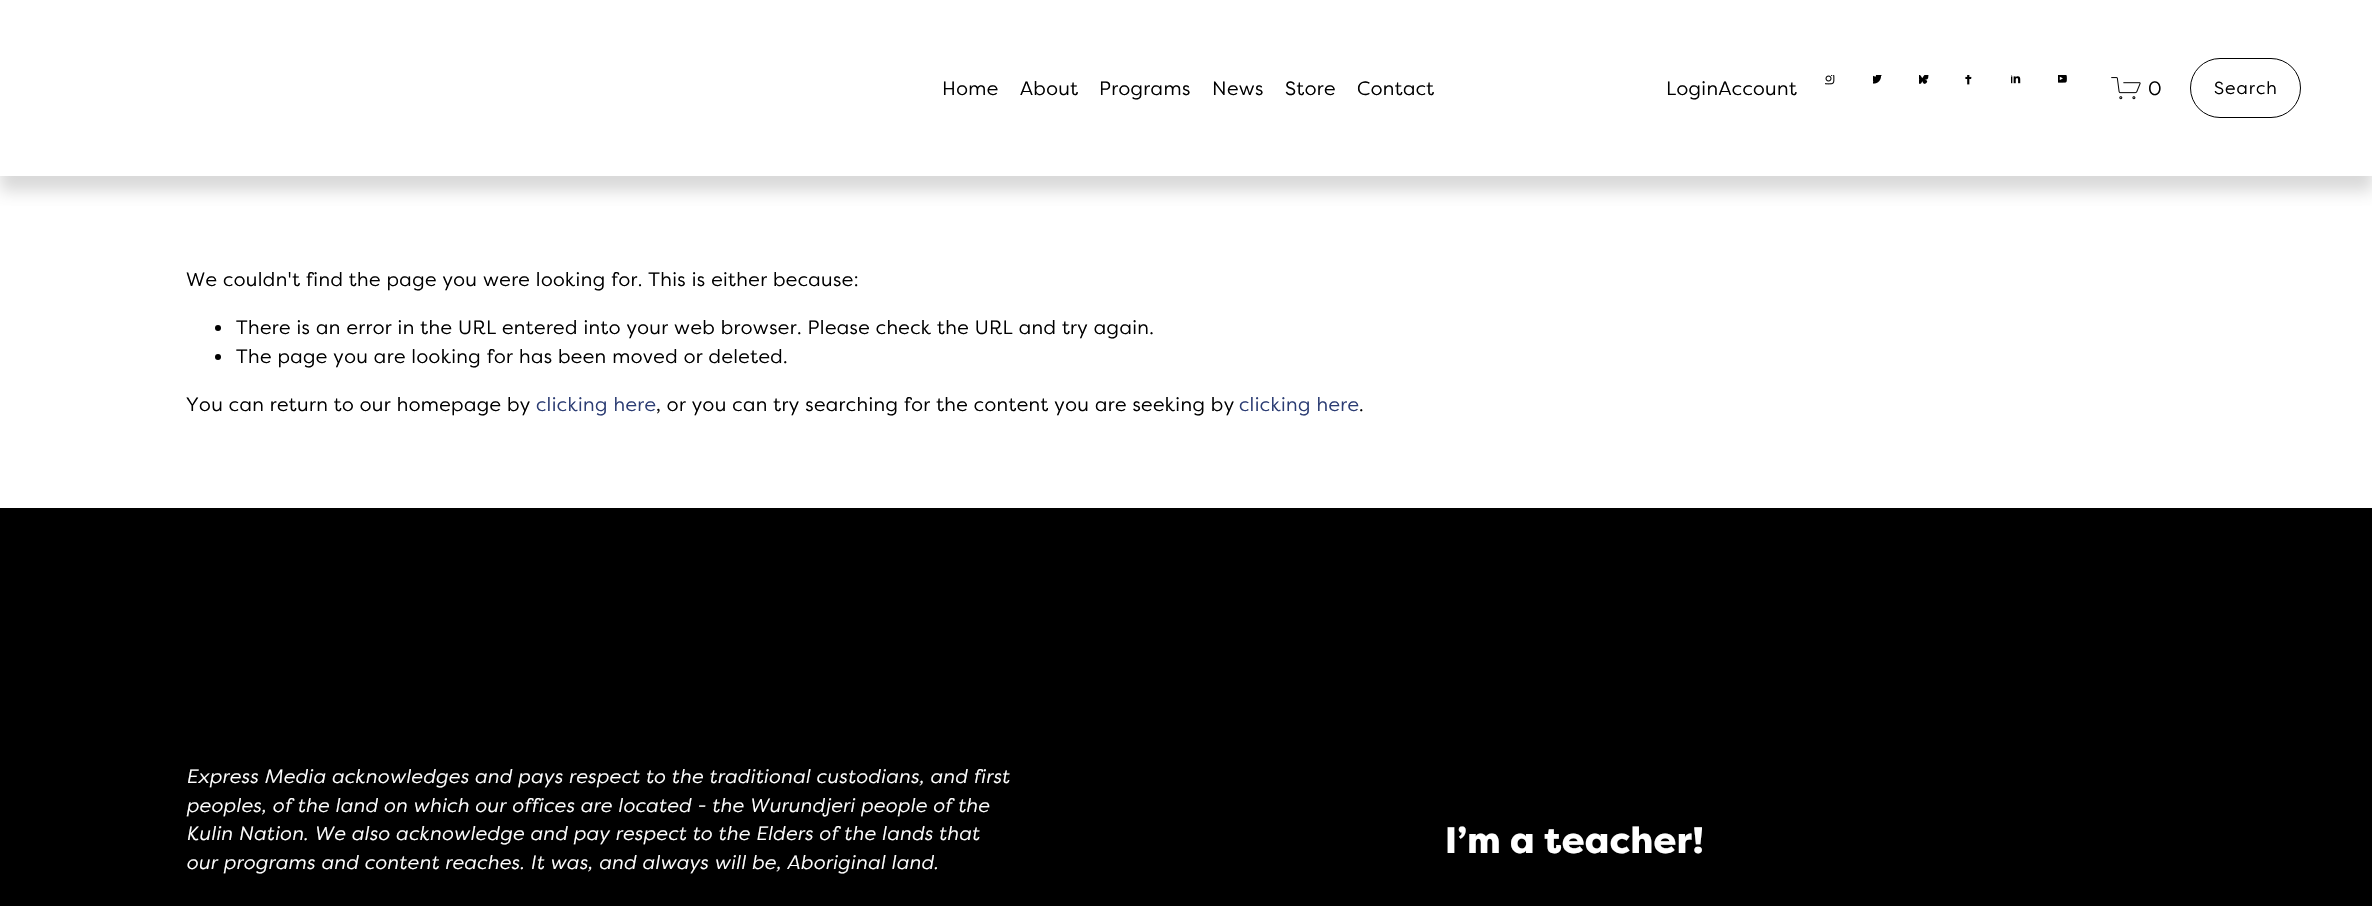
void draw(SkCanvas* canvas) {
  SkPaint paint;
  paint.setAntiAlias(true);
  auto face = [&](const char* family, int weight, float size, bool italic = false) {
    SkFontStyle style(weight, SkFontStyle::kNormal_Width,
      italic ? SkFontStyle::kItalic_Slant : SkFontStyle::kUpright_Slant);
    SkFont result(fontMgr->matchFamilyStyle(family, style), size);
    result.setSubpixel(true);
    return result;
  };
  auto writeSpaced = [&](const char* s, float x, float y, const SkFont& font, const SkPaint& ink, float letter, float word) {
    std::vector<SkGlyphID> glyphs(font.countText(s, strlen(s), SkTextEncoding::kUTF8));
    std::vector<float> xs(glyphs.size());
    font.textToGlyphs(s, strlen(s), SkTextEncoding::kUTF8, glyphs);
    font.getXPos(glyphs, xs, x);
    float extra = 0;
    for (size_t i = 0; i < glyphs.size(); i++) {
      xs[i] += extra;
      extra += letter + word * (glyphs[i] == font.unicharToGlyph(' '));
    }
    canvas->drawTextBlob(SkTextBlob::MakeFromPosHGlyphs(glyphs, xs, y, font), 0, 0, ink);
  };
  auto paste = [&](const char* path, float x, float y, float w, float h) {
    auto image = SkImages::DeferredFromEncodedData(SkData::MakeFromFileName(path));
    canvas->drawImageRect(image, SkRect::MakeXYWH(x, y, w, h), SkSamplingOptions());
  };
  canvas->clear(0xffffffff);
  canvas->save();
  canvas->clipRect(SkRect::MakeXYWH(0, 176, 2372, 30));
  paint.setColor(0xffd9d9d9);
  paint.setMaskFilter(SkMaskFilter::MakeBlur(kNormal_SkBlurStyle, 7.5f));
  canvas->drawRect(SkRect::MakeXYWH(0, 15, 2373, 176), paint);
  paint.setMaskFilter(nullptr);
  canvas->restore();
  paste("img/1.png", 1825, 75, 10, 10);
  paste("img/2.png", 1873, 75, 9, 9);
  paste("img/3.png", 1919, 75, 10, 9);
  paste("img/4.png", 1965, 75, 7, 10);
  paste("img/5.png", 2011, 75, 10, 9);
  paste("img/6.png", 2058, 75, 9, 8);
  paste("img/7.png", 2111, 77, 30, 23);
  paint.setStroke(true);
  paint.setStrokeWidth(1);
  paint.setColor(0xff000000);
  canvas->drawRoundRect(SkRect::MakeXYWH(2190.5f, 58.5f, 110, 59), 29.5f, 29.5f, paint);
  paint.setStroke(false);
  canvas->drawCircle(218, 328, 3, paint);
  canvas->drawCircle(218, 357, 3, paint);
  canvas->drawRect(SkRect::MakeXYWH(0, 508, 2372, 398), paint);
  auto f0 = face("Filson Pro", 400, 19.25f);
  {
    const struct { const char* s; float x, y; } items[] = {
      {"Home", 942, 95},
      {"About", 1020, 95},
      {"Programs", 1099, 95},
      {"News", 1212, 95},
      {"Store", 1285, 95},
      {"Contact", 1357, 95},
      {"LoginAccount", 1666, 95},
      {"0", 2148, 95},
    };
    for (auto [s, x, y] : items) {
      writeSpaced(s, x, y, f0, paint, 0.4f, 0);
    }
  }
  auto f1 = face("Filson Pro", 400, 17.5f);
  writeSpaced("Search", 2214, 94, f1, paint, 1, 0);
  {
    const struct { const char* s; float x, y; } items[] = {
      {"We couldn't find the page you were looking for. This is either because:", 186, 286},
      {"There is an error in the URL entered into your web browser. Please check the URL and try again.", 236, 334},
      {"The page you are looking for has been moved or deleted.", 236, 363},
      {"You can return to our homepage by", 186, 411},
    };
    for (auto [s, x, y] : items) {
      writeSpaced(s, x, y, f0, paint, 0.4f, 0);
    }
  }
  paint.setColor(0xff2b3c73);
  writeSpaced("clicking here", 536, 411, f0, paint, 0.4f, 0);
  paint.setColor(0xff000000);
  writeSpaced(", or you can try searching for the content you are seeking by", 656, 411, f0, paint, 0.4f, 0);
  paint.setColor(0xff2b3c73);
  writeSpaced("clicking here", 1239, 411, f0, paint, 0.4f, 0);
  paint.setColor(0xff000000);
  writeSpaced(".", 1359, 411, f0, paint, 0.4f, 0);
  auto f2 = face("Filson Pro", 400, 19.25f, true);
  paint.setColor(0xffffffff);
  {
    const struct { const char* s; float x, y; } items[] = {
      {"Express Media acknowledges and pays respect to the traditional custodians, and first", 186, 783},
      {"peoples, of the land on which our offices are located - the Wurundjeri people of the", 186, 812},
      {"Kulin Nation. We also acknowledge and pay respect to the Elders of the lands that", 186, 840},
      {"our programs and content reaches. It was, and always will be, Aboriginal land.", 186, 869},
    };
    for (auto [s, x, y] : items) {
      writeSpaced(s, x, y, f2, paint, 0.4f, 0);
    }
  }
  auto f3 = face("Filson Pro", 900, 36.75f);
  writeSpaced("I’m a teacher!", 1445, 853, f3, paint, 0.4f, 0);
}
